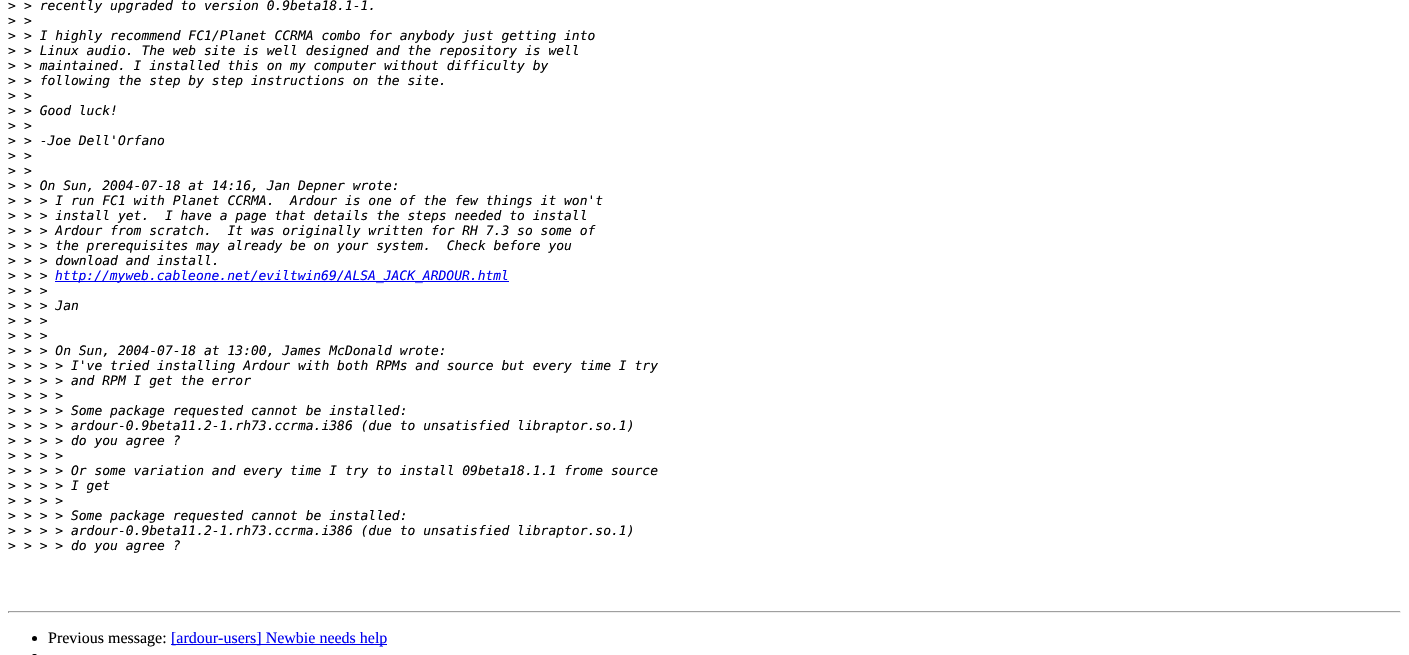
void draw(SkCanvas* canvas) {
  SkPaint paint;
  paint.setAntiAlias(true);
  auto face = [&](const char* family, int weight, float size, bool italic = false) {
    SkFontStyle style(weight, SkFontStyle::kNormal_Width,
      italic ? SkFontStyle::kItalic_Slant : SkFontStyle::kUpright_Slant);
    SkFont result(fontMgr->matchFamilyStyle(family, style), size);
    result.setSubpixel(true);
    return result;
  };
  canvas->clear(0xffffffff);
  {
    const struct { float x, y, w, h; SkColor color; } items[] = {
      {55, 281, 454, 1, 0xff0000ee},
      {8, 611, 1393, 1, 0xff9f9f9f},
      {1400, 611, 1, 2, 0xffeeeeee},
      {8, 612, 1393, 1, 0xffeeeeee},
      {8, 611, 1, 2, 0xff9f9f9f},
    };
    for (auto [x, y, w, h, color] : items) {
      paint.setColor(color);
      canvas->drawRect(SkRect::MakeXYWH(x, y, w, h), paint);
    }
  }
  paint.setColor(0xff000000);
  canvas->drawCircle(34.5f, 638.5f, 2.5f, paint);
  paint.setColor(0xff0000ee);
  canvas->drawRect(SkRect::MakeXYWH(171, 644, 216, 1), paint);
  paint.setColor(0xff000000);
  canvas->drawRoundRect(SkRect::MakeXYWH(32, 654, 5, 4), 2.5f, 2.5f, paint);
  auto f0 = face("DejaVu Sans Mono", 400, 13);
  canvas->drawString(">", 8, 10, f0, paint);
  auto f1 = face("DejaVu Sans Mono", 400, 13, true);
  canvas->drawString("> recently upgraded to version 0.9beta18.1-1.", 24, 10, f1, paint);
  canvas->drawString(">", 8, 25, f0, paint);
  canvas->drawString(">", 24, 25, f1, paint);
  canvas->drawString(">", 8, 40, f0, paint);
  canvas->drawString("> I highly recommend FC1/Planet CCRMA combo for anybody just getting into", 24, 40, f1, paint);
  canvas->drawString(">", 8, 55, f0, paint);
  canvas->drawString("> Linux audio. The web site is well designed and the repository is well", 24, 55, f1, paint);
  canvas->drawString(">", 8, 70, f0, paint);
  canvas->drawString("> maintained. I installed this on my computer without difficulty by", 24, 70, f1, paint);
  canvas->drawString(">", 8, 85, f0, paint);
  canvas->drawString("> following the step by step instructions on the site.", 24, 85, f1, paint);
  canvas->drawString(">", 8, 100, f0, paint);
  canvas->drawString(">", 24, 100, f1, paint);
  canvas->drawString(">", 8, 115, f0, paint);
  canvas->drawString("> Good luck!", 24, 115, f1, paint);
  canvas->drawString(">", 8, 130, f0, paint);
  canvas->drawString(">", 24, 130, f1, paint);
  canvas->drawString(">", 8, 145, f0, paint);
  canvas->drawString("> -Joe Dell'Orfano", 24, 145, f1, paint);
  canvas->drawString(">", 8, 160, f0, paint);
  canvas->drawString(">", 24, 160, f1, paint);
  canvas->drawString(">", 8, 175, f0, paint);
  canvas->drawString(">", 24, 175, f1, paint);
  canvas->drawString(">", 8, 190, f0, paint);
  canvas->drawString("> On Sun, 2004-07-18 at 14:16, Jan Depner wrote:", 24, 190, f1, paint);
  canvas->drawString(">", 8, 205, f0, paint);
  canvas->drawString("> > I run FC1 with Planet CCRMA.  Ardour is one of the few things it won't", 24, 205, f1, paint);
  canvas->drawString(">", 8, 220, f0, paint);
  canvas->drawString("> > install yet.  I have a page that details the steps needed to install", 24, 220, f1, paint);
  canvas->drawString(">", 8, 235, f0, paint);
  canvas->drawString("> > Ardour from scratch.  It was originally written for RH 7.3 so some of", 24, 235, f1, paint);
  canvas->drawString(">", 8, 250, f0, paint);
  canvas->drawString("> > the prerequisites may already be on your system.  Check before you", 24, 250, f1, paint);
  canvas->drawString(">", 8, 265, f0, paint);
  canvas->drawString("> > download and install.", 24, 265, f1, paint);
  canvas->drawString(">", 8, 280, f0, paint);
  canvas->drawString("> >", 24, 280, f1, paint);
  paint.setColor(0xff0000ee);
  canvas->drawString("http://myweb.cableone.net/eviltwin69/ALSA_JACK_ARDOUR.html", 55, 280, f1, paint);
  paint.setColor(0xff000000);
  canvas->drawString(">", 8, 295, f0, paint);
  canvas->drawString("> >", 24, 295, f1, paint);
  canvas->drawString(">", 8, 310, f0, paint);
  canvas->drawString("> > Jan", 24, 310, f1, paint);
  canvas->drawString(">", 8, 325, f0, paint);
  canvas->drawString("> >", 24, 325, f1, paint);
  canvas->drawString(">", 8, 340, f0, paint);
  canvas->drawString("> >", 24, 340, f1, paint);
  canvas->drawString(">", 8, 355, f0, paint);
  canvas->drawString("> > On Sun, 2004-07-18 at 13:00, James McDonald wrote:", 24, 355, f1, paint);
  canvas->drawString(">", 8, 370, f0, paint);
  canvas->drawString("> > > I've tried installing Ardour with both RPMs and source but every time I try", 24, 370, f1, paint);
  canvas->drawString(">", 8, 385, f0, paint);
  canvas->drawString("> > > and RPM I get the error", 24, 385, f1, paint);
  canvas->drawString(">", 8, 400, f0, paint);
  canvas->drawString("> > >", 24, 400, f1, paint);
  canvas->drawString(">", 8, 415, f0, paint);
  canvas->drawString("> > > Some package requested cannot be installed:", 24, 415, f1, paint);
  canvas->drawString(">", 8, 430, f0, paint);
  canvas->drawString("> > > ardour-0.9beta11.2-1.rh73.ccrma.i386 (due to unsatisfied libraptor.so.1)", 24, 430, f1, paint);
  canvas->drawString(">", 8, 445, f0, paint);
  canvas->drawString("> > > do you agree ?", 24, 445, f1, paint);
  canvas->drawString(">", 8, 460, f0, paint);
  canvas->drawString("> > >", 24, 460, f1, paint);
  canvas->drawString(">", 8, 475, f0, paint);
  canvas->drawString("> > > Or some variation and every time I try to install 09beta18.1.1 frome source", 24, 475, f1, paint);
  canvas->drawString(">", 8, 490, f0, paint);
  canvas->drawString("> > > I get", 24, 490, f1, paint);
  canvas->drawString(">", 8, 505, f0, paint);
  canvas->drawString("> > >", 24, 505, f1, paint);
  canvas->drawString(">", 8, 520, f0, paint);
  canvas->drawString("> > > Some package requested cannot be installed:", 24, 520, f1, paint);
  canvas->drawString(">", 8, 535, f0, paint);
  canvas->drawString("> > > ardour-0.9beta11.2-1.rh73.ccrma.i386 (due to unsatisfied libraptor.so.1)", 24, 535, f1, paint);
  canvas->drawString(">", 8, 550, f0, paint);
  canvas->drawString("> > > do you agree ?", 24, 550, f1, paint);
  auto f2 = face("Liberation Serif", 400, 16);
  canvas->drawString("Previous message:", 48, 643, f2, paint);
  paint.setColor(0xff0000ee);
  canvas->drawString("[ardour-users] Newbie needs help", 171, 643, f2, paint);
}
